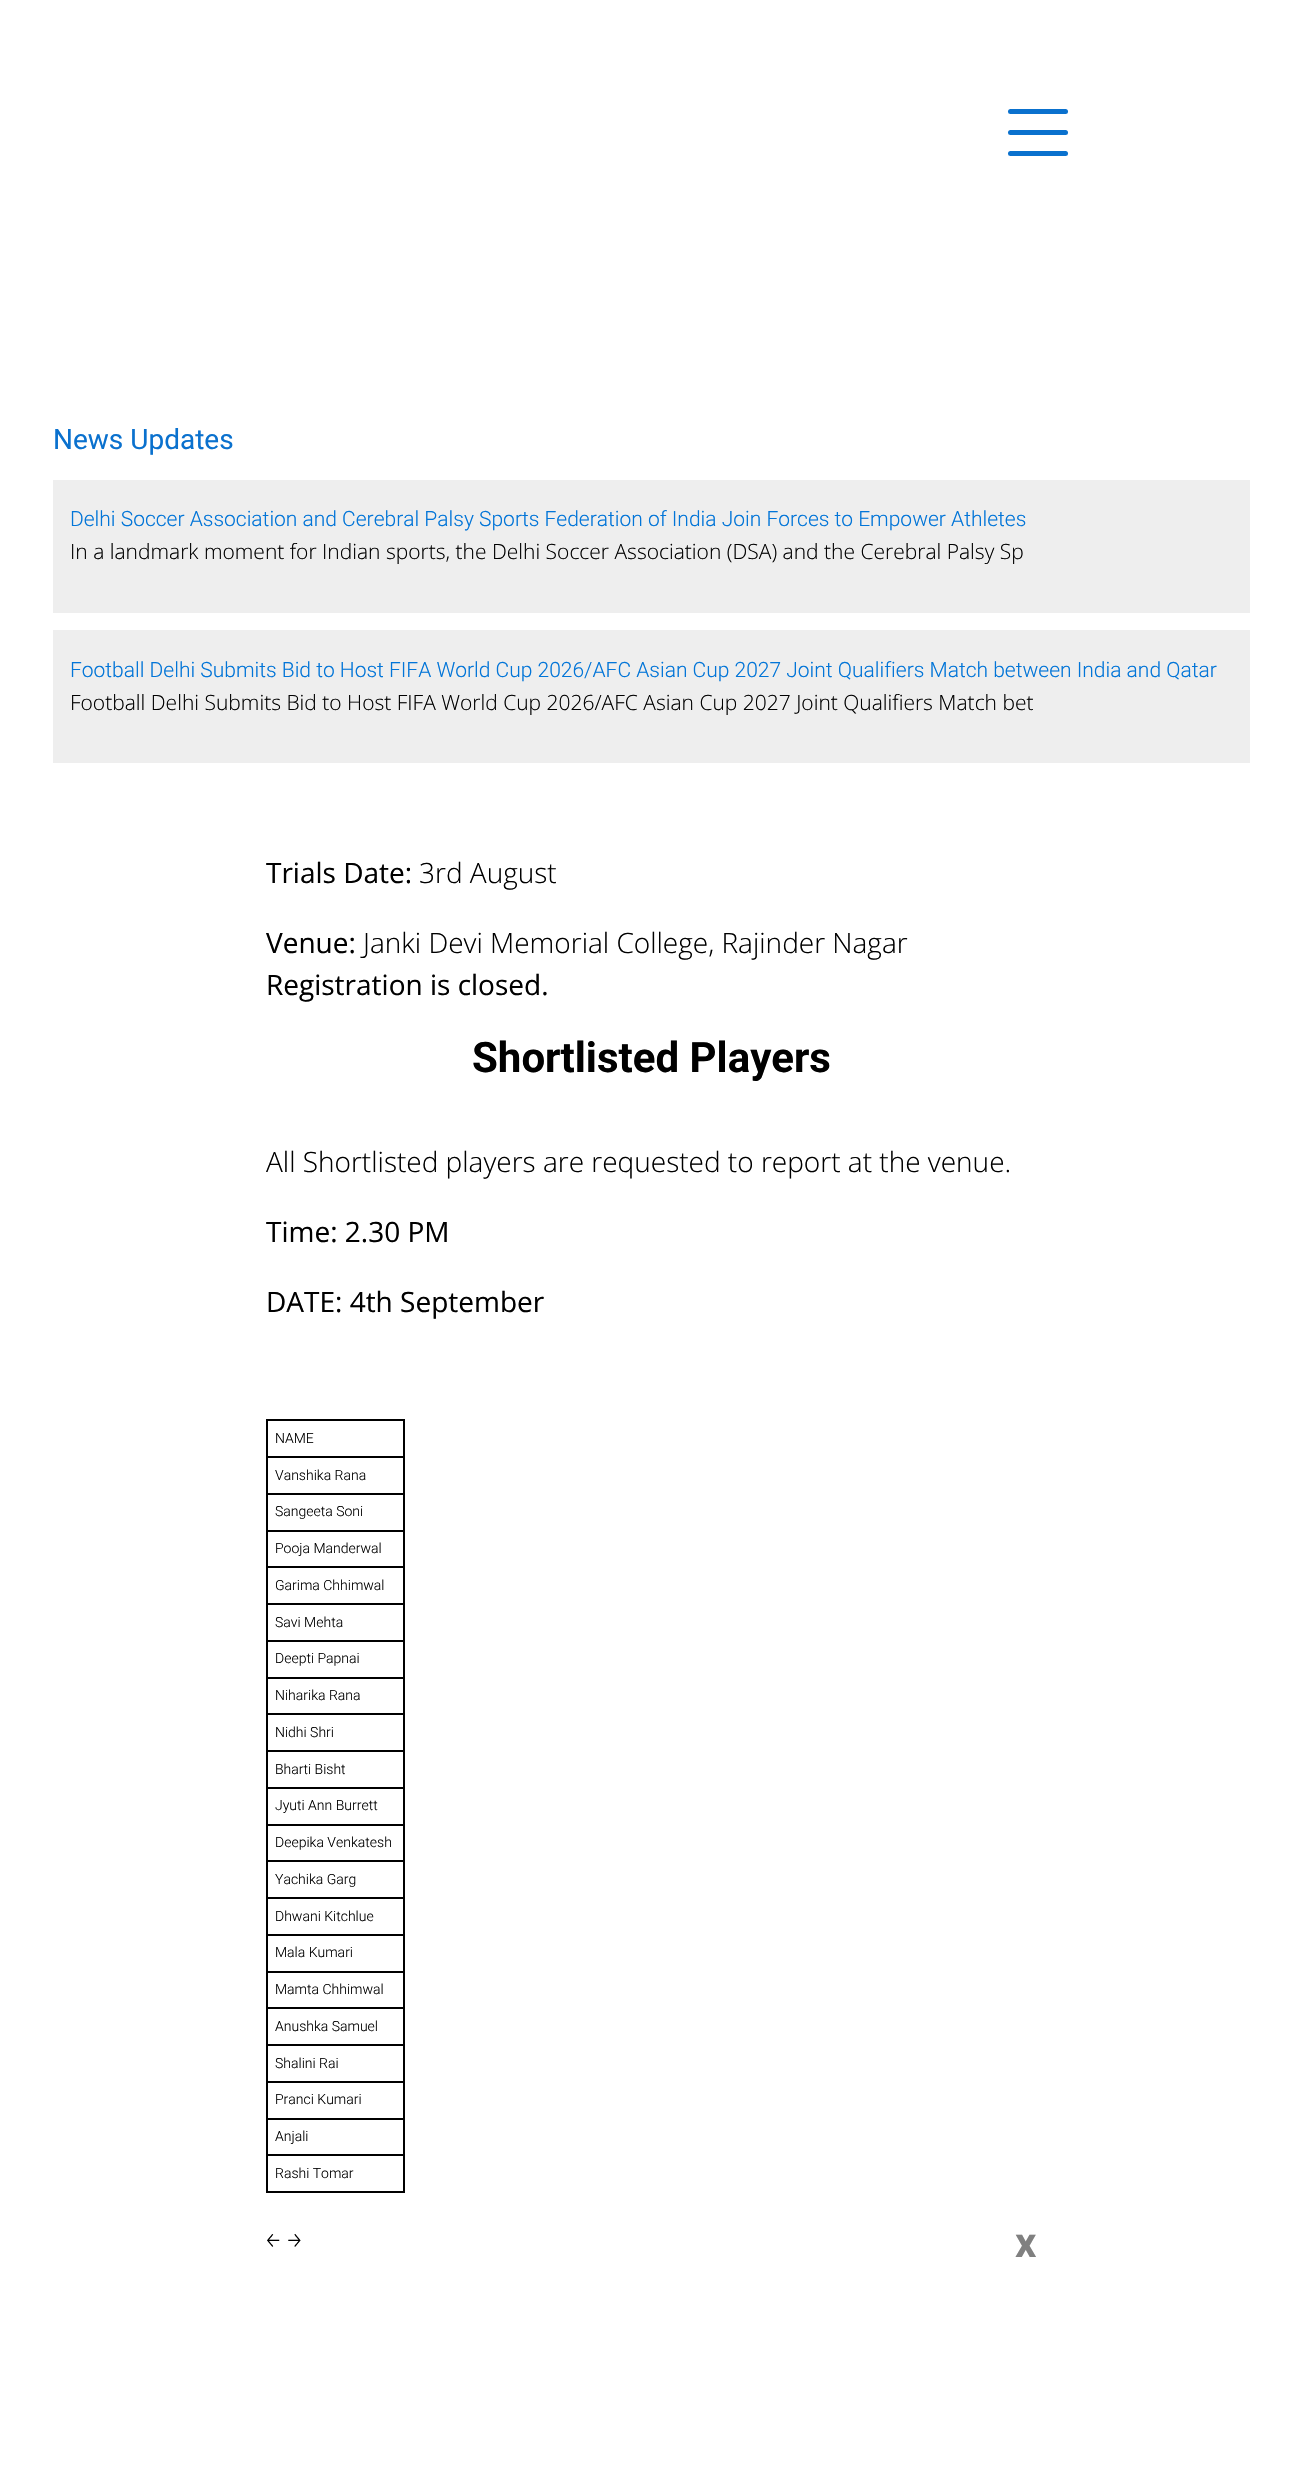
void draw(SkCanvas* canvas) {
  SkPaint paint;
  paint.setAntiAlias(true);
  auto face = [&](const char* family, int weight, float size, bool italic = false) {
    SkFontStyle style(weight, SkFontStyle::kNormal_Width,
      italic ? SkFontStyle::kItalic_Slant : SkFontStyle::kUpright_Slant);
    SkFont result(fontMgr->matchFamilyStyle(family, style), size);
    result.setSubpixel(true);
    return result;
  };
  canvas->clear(0xffffffff);
  paint.setColor(0xff0a71ce);
  canvas->drawRoundRect(SkRect::MakeXYWH(1008, 109, 60, 5), 2.5f, 2.5f, paint);
  canvas->drawRoundRect(SkRect::MakeXYWH(1008, 130, 60, 5), 2.5f, 2.5f, paint);
  canvas->drawRoundRect(SkRect::MakeXYWH(1008, 151, 60, 5), 2.5f, 2.5f, paint);
  {
    const struct { float x, y, w, h; SkColor color; } items[] = {
      {53, 480, 1197, 133, 0xffeeeeee},
      {53, 630, 1197, 133, 0xffeeeeee},
      {266, 1419, 138, 2, 0xff000000},
      {266, 1456, 138, 2, 0xff000000},
      {266, 1493, 138, 2, 0xff000000},
      {266, 1530, 138, 2, 0xff000000},
      {266, 1566, 138, 2, 0xff000000},
      {266, 1603, 138, 2, 0xff000000},
      {266, 1640, 138, 2, 0xff000000},
      {266, 1677, 138, 2, 0xff000000},
      {266, 1713, 138, 2, 0xff000000},
      {266, 1750, 138, 2, 0xff000000},
      {266, 1787, 138, 2, 0xff000000},
      {266, 1824, 138, 2, 0xff000000},
      {266, 1860, 138, 2, 0xff000000},
      {266, 1897, 138, 2, 0xff000000},
      {266, 1934, 138, 2, 0xff000000},
      {266, 1971, 138, 2, 0xff000000},
      {266, 2007, 138, 2, 0xff000000},
      {266, 2044, 138, 2, 0xff000000},
      {266, 2081, 138, 2, 0xff000000},
      {266, 2118, 138, 2, 0xff000000},
      {266, 2154, 138, 2, 0xff000000},
      {403, 2154, 2, 39, 0xff000000},
      {403, 2118, 2, 38, 0xff000000},
      {403, 2081, 2, 38, 0xff000000},
      {403, 2044, 2, 39, 0xff000000},
      {403, 2007, 2, 39, 0xff000000},
      {403, 1971, 2, 38, 0xff000000},
      {403, 1934, 2, 38, 0xff000000},
      {403, 1897, 2, 39, 0xff000000},
      {403, 1860, 2, 39, 0xff000000},
      {403, 1824, 2, 38, 0xff000000},
      {403, 1787, 2, 38, 0xff000000},
      {403, 1750, 2, 39, 0xff000000},
      {403, 1713, 2, 39, 0xff000000},
      {403, 1677, 2, 38, 0xff000000},
      {403, 1640, 2, 38, 0xff000000},
      {403, 1603, 2, 39, 0xff000000},
      {403, 1566, 2, 39, 0xff000000},
      {403, 1530, 2, 38, 0xff000000},
      {403, 1493, 2, 38, 0xff000000},
      {403, 1456, 2, 39, 0xff000000},
      {403, 1419, 2, 39, 0xff000000},
      {266, 2191, 138, 2, 0xff000000},
      {266, 2154, 2, 39, 0xff000000},
      {266, 2118, 2, 38, 0xff000000},
      {266, 2081, 2, 38, 0xff000000},
      {266, 2044, 2, 39, 0xff000000},
      {266, 2007, 2, 39, 0xff000000},
      {266, 1971, 2, 38, 0xff000000},
      {266, 1934, 2, 38, 0xff000000},
      {266, 1897, 2, 39, 0xff000000},
      {266, 1860, 2, 39, 0xff000000},
      {266, 1824, 2, 38, 0xff000000},
      {266, 1787, 2, 38, 0xff000000},
      {266, 1750, 2, 39, 0xff000000},
      {266, 1713, 2, 39, 0xff000000},
      {266, 1677, 2, 38, 0xff000000},
      {266, 1640, 2, 38, 0xff000000},
      {266, 1603, 2, 39, 0xff000000},
      {266, 1566, 2, 39, 0xff000000},
      {266, 1530, 2, 38, 0xff000000},
      {266, 1493, 2, 38, 0xff000000},
      {266, 1456, 2, 39, 0xff000000},
      {266, 1419, 2, 39, 0xff000000},
    };
    for (auto [x, y, w, h, color] : items) {
      paint.setColor(color);
      canvas->drawRect(SkRect::MakeXYWH(x, y, w, h), paint);
    }
  }
  auto f0 = face("Roboto", 400, 28);
  paint.setColor(0xff0a71ce);
  canvas->drawString("News Updates", 53, 449, f0, paint);
  auto f1 = face("Roboto", 300, 21);
  paint.setColor(0xff0275d8);
  canvas->drawString("Delhi Soccer Association and Cerebral Palsy Sports Federation of India Join Forces to Empower Athletes", 70, 526, f1, paint);
  auto f2 = face("Open Sans", 300, 21);
  paint.setColor(0xff000000);
  canvas->drawString("In a landmark moment for Indian sports, the Delhi Soccer Association (DSA) and the Cerebral Palsy Sp", 70, 559, f2, paint);
  paint.setColor(0xff0275d8);
  canvas->drawString("Football Delhi Submits Bid to Host FIFA World Cup 2026/AFC Asian Cup 2027 Joint Qualifiers Match between India and Qatar", 70, 677, f1, paint);
  paint.setColor(0xff000000);
  canvas->drawString("Football Delhi Submits Bid to Host FIFA World Cup 2026/AFC Asian Cup 2027 Joint Qualifiers Match bet", 70, 710, f2, paint);
  auto f3 = face("Open Sans", 400, 28);
  canvas->drawString("Trials Date:", 266, 883, f3, paint);
  auto f4 = face("Open Sans", 300, 28);
  canvas->drawString("3rd August", 419, 883, f4, paint);
  canvas->drawString("Venue:", 266, 953, f3, paint);
  canvas->drawString("Janki Devi Memorial College, Rajinder Nagar", 363, 953, f4, paint);
  canvas->drawString("Registration is closed.", 266, 995, f3, paint);
  auto f5 = face("Roboto", 700, 42);
  canvas->drawString("Shortlisted Players", 472, 1072, f5, paint);
  canvas->drawString("All Shortlisted players are requested to report at the venue.", 266, 1172, f4, paint);
  canvas->drawString("Time: 2.30 PM", 266, 1242, f3, paint);
  canvas->drawString("DATE: 4th September", 266, 1312, f3, paint);
  auto f6 = face("Roboto", 300, 14);
  {
    const struct { const char* s; float x, y; } items[] = {
      {"NAME", 275, 1443},
      {"Vanshika Rana", 275, 1480},
      {"Sangeeta Soni", 275, 1516},
      {"Pooja Manderwal", 275, 1553},
      {"Garima Chhimwal", 275, 1590},
      {"Savi Mehta", 275, 1627},
      {"Deepti Papnai", 275, 1663},
      {"Niharika Rana", 275, 1700},
      {"Nidhi Shri", 275, 1737},
      {"Bharti Bisht", 275, 1774},
      {"Jyuti Ann Burrett", 275, 1810},
      {"Deepika Venkatesh", 275, 1847},
      {"Yachika Garg", 275, 1884},
      {"Dhwani Kitchlue", 275, 1921},
      {"Mala Kumari", 275, 1957},
      {"Mamta Chhimwal", 275, 1994},
      {"Anushka Samuel", 275, 2031},
      {"Shalini Rai", 275, 2068},
      {"Pranci Kumari", 275, 2104},
      {"Anjali", 275, 2141},
      {"Rashi Tomar", 275, 2178},
    };
    for (auto [s, x, y] : items) {
      canvas->drawString(s, x, y, f6, paint);
    }
  }
  auto f7 = face("Chiron Hei HK", 300, 28);
  canvas->drawString("￩", 266, 2251, f7, paint);
  canvas->drawString("￫", 287, 2251, f7, paint);
  paint.setColor(0xff808080);
  canvas->drawString("x", 1015, 2257, f5, paint);
}
